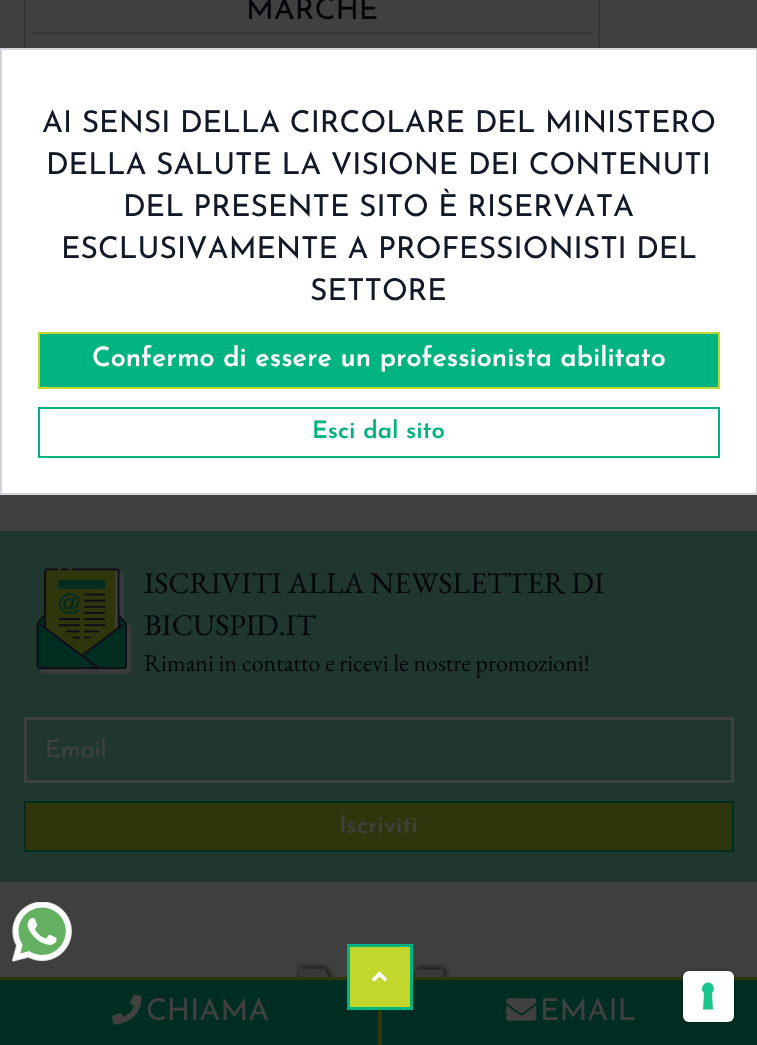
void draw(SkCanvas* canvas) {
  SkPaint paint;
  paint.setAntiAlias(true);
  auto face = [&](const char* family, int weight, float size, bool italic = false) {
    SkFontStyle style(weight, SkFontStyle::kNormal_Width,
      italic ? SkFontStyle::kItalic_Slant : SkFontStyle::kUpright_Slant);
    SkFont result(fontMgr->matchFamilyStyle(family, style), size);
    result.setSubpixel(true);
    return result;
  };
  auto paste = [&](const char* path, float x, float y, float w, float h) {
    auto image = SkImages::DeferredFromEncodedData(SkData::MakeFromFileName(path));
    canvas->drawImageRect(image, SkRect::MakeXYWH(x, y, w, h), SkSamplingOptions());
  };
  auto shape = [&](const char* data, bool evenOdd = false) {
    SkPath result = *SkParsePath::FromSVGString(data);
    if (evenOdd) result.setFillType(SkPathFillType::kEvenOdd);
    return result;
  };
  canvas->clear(0xff404040);
  paint.setStroke(true);
  paint.setStrokeWidth(2);
  paint.setColor(0xff343537);
  canvas->drawRect(SkRect::MakeXYWH(25, -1, 574, 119), paint);
  paint.setStroke(false);
  canvas->drawRect(SkRect::MakeXYWH(32, 32, 561, 2), paint);
  paint.setColor(0xffffffff);
  canvas->drawRect(SkRect::MakeXYWH(1, 49, 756, 445), paint);
  paint.setStroke(true);
  paint.setColor(0xffd1d5db);
  canvas->drawRect(SkRect::MakeXYWH(1, 49, 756, 445), paint);
  paint.setStroke(false);
  paint.setColor(0xff00b482);
  canvas->drawRect(SkRect::MakeXYWH(39, 333, 680, 55), paint);
  paint.setStroke(true);
  paint.setColor(0xffc1d72d);
  canvas->drawRect(SkRect::MakeXYWH(39, 333, 680, 55), paint);
  paint.setColor(0xff00b482);
  canvas->drawRect(SkRect::MakeXYWH(39, 408, 680, 49), paint);
  paint.setStroke(false);
  paint.setColor(0xff203730);
  canvas->drawRect(SkRect::MakeXYWH(0, 531, 757, 351), paint);
  paste("img/1.png", 36, 568, 96, 106);
  paint.setStroke(true);
  paint.setStrokeWidth(3);
  paint.setColor(0xff404040);
  canvas->drawRect(SkRect::MakeXYWH(25.5f, 718.5f, 707, 63), paint);
  paint.setStroke(false);
  paint.setColor(0xff30360b);
  canvas->drawRect(SkRect::MakeXYWH(25, 802, 708, 49), paint);
  paint.setStroke(true);
  paint.setStrokeWidth(2);
  paint.setColor(0xff002d21);
  canvas->drawRect(SkRect::MakeXYWH(25, 802, 708, 49), paint);
  paint.setStroke(false);
  paint.setColor(0xff3f3f3d);
  canvas->drawRect(SkRect::MakeXYWH(0, 882, 757, 95), paint);
  paste("img/2.png", 294, 962, 157, 15);
  paste("img/3.png", 12, 902, 60, 60);
  paint.setColor(0xff002d21);
  canvas->drawRect(SkRect::MakeXYWH(0, 980, 757, 65), paint);
  paint.setColor(0xff30360b);
  canvas->drawRect(SkRect::MakeXYWH(0, 977, 757, 3), paint);
  paint.setColor(0xffc1d72d);
  canvas->drawRect(SkRect::MakeXYWH(348.5f, 945.5f, 63, 63), paint);
  paint.setStroke(true);
  paint.setStrokeWidth(3);
  paint.setColor(0xff00b482);
  canvas->drawRect(SkRect::MakeXYWH(348.5f, 945.5f, 63, 63), paint);
  paste("img/4.png", 372, 971, 15, 11);
  paint.setStrokeWidth(2);
  paint.setColor(0x26000000);
  canvas->drawRoundRect(SkRect::MakeXYWH(682, 970, 52, 52), 7, 7, paint);
  paint.setStroke(false);
  paint.setColor(0xffffffff);
  canvas->drawRoundRect(SkRect::MakeXYWH(683, 971, 51, 51), 6, 6, paint);
  paint.setColor(0xff1cc691);
  canvas->drawPath(shape("M708 982.5C713.5 982.5 716 989.5 712 993L713 1009.5H703L704 993C700 989.5 702.5 982.5 708 982.5Z", true), paint);
  paint.setColor(0xff30360b);
  canvas->drawRect(SkRect::MakeXYWH(378, 1010, 4, 35), paint);
  paste("img/5.png", 111, 994, 31, 31);
  paste("img/6.png", 506, 998, 31, 23);
  auto f0 = face("Josefin Sans", 400, 30);
  paint.setColor(0xff04060a);
  canvas->drawString("MARCHE", 246, 19, f0, paint);
  paint.setColor(0xff111827);
  {
    const struct { const char* s; float x, y; } items[] = {
      {"AI SENSI DELLA CIRCOLARE DEL MINISTERO", 42, 132},
      {"DELLA SALUTE LA VISIONE DEI CONTENUTI", 46, 174},
      {"DEL PRESENTE SITO È RISERVATA", 123, 216},
      {"ESCLUSIVAMENTE A PROFESSIONISTI DEL", 61, 258},
      {"SETTORE", 310, 300},
    };
    for (auto [s, x, y] : items) {
      canvas->drawString(s, x, y, f0, paint);
    }
  }
  auto f1 = face("Josefin Sans", 600, 27);
  paint.setColor(0xffffffff);
  canvas->drawString("Confermo di essere un professionista abilitato", 92, 366, f1, paint);
  auto f2 = face("Josefin Sans", 600, 24);
  paint.setColor(0xff00b482);
  canvas->drawString("Esci dal sito", 312, 438, f2, paint);
  auto f3 = face("EB Garamond", 400, 30);
  paint.setColor(0xff04060a);
  canvas->drawString("ISCRIVITI ALLA NEWSLETTER DI", 144, 593, f3, paint);
  canvas->drawString("BICUSPID.IT", 144, 635, f3, paint);
  auto f4 = face("EB Garamond", 400, 24);
  canvas->drawString("Rimani in contatto e ricevi le nostre promozioni!", 144, 671, f4, paint);
  auto f5 = face("Josefin Sans", 400, 24);
  paint.setColor(0xff404040);
  canvas->drawString("Email", 45, 757, f5, paint);
  canvas->drawString("Iscriviti", 339, 833, f2, paint);
  canvas->drawString("CHIAMA", 146, 1020, f0, paint);
  canvas->drawString("EMAIL", 540, 1020, f0, paint);
}
